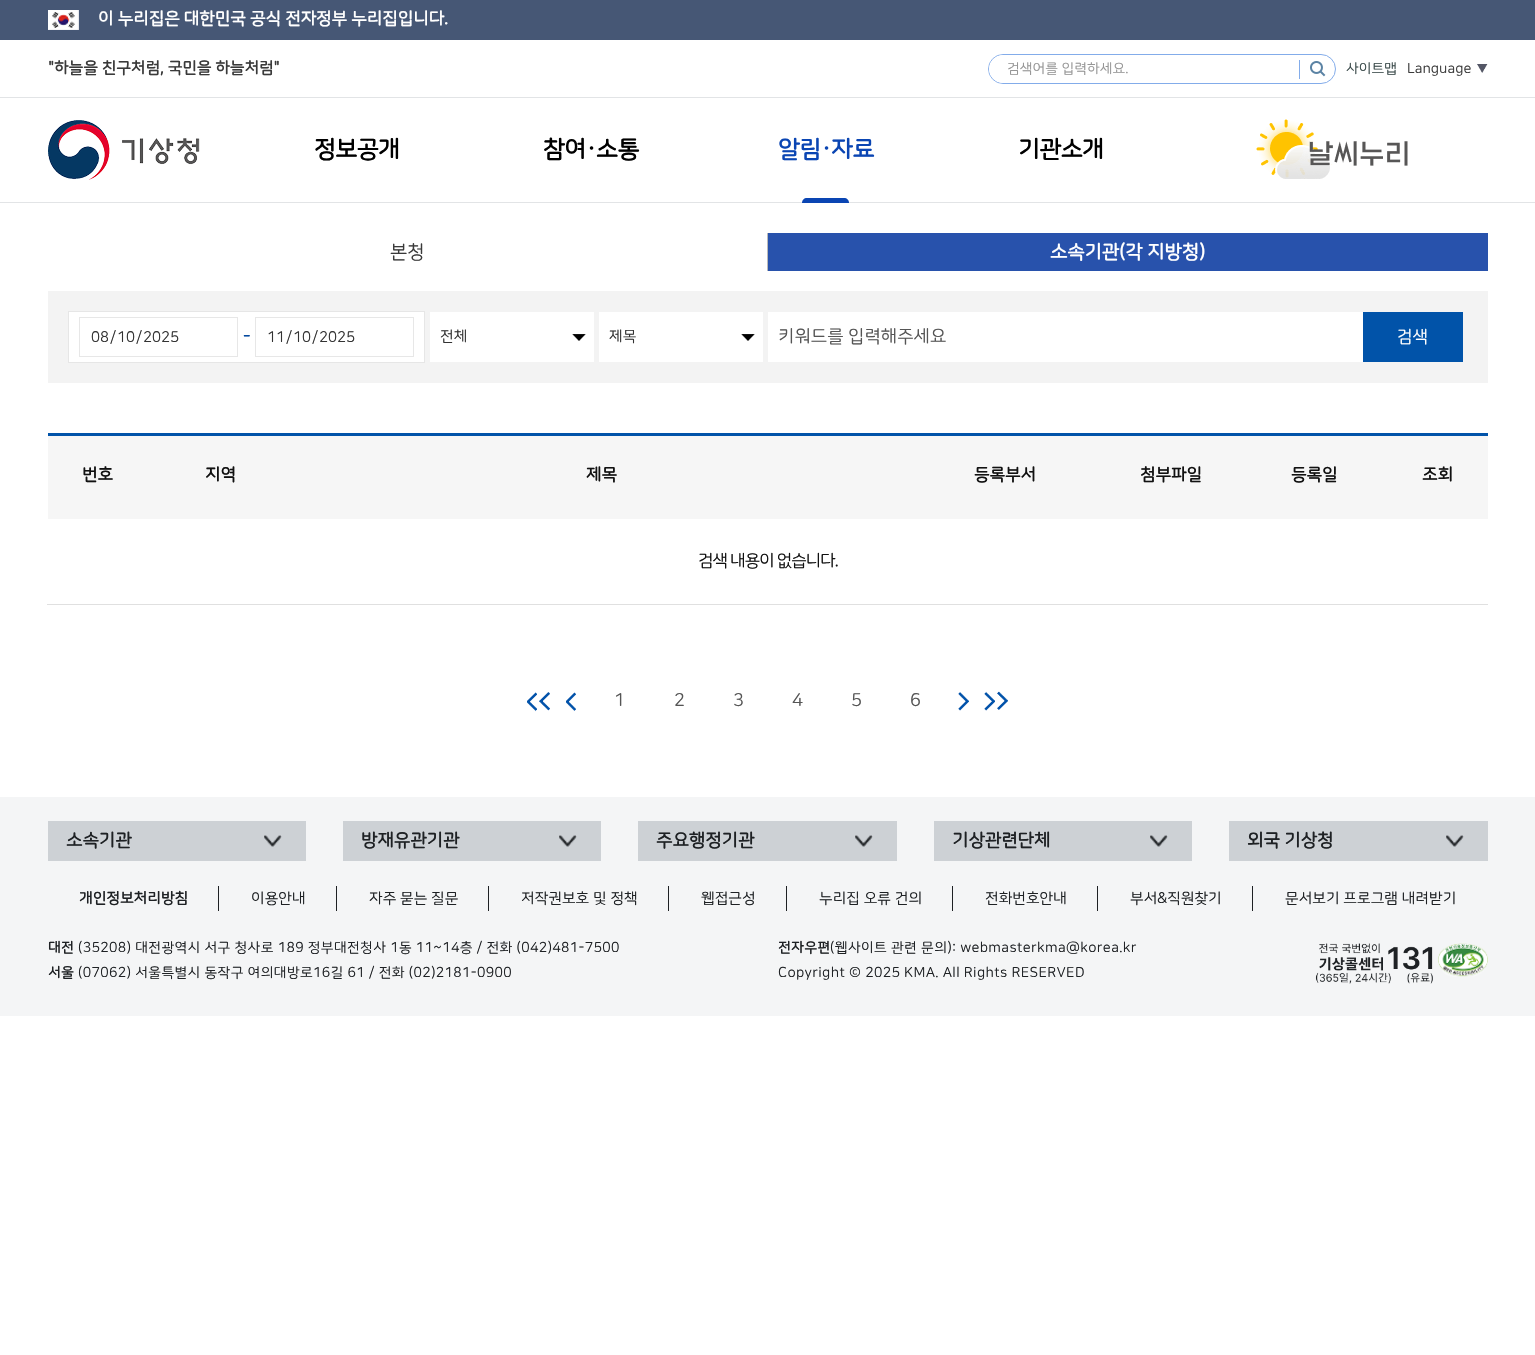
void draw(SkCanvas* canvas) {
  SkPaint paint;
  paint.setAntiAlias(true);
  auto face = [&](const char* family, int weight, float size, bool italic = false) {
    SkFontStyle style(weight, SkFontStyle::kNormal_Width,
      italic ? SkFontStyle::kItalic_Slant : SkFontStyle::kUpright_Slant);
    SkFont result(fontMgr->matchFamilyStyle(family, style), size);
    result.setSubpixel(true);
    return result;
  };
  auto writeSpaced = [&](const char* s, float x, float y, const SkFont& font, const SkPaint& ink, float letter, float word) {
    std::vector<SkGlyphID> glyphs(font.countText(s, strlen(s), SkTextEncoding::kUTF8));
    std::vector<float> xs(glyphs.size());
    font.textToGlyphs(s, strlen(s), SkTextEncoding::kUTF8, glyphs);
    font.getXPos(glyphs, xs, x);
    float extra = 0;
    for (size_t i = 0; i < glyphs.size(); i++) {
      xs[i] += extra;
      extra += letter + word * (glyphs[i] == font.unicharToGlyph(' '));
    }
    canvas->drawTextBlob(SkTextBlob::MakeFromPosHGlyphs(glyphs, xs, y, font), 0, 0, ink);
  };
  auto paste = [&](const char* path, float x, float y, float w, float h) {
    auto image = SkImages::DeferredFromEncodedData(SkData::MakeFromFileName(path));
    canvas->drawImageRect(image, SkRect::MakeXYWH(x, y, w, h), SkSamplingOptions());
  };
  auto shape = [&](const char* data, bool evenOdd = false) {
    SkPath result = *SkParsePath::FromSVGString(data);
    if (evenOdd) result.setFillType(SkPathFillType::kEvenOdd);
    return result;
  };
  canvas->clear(0xffffffff);
  paint.setColor(0xff465775);
  canvas->drawRect(SkRect::MakeXYWH(0, 0, 1535, 40), paint);
  paste("img/1.png", 48, 10, 31, 20);
  paint.setStroke(true);
  paint.setStrokeWidth(1);
  paint.setColor(0xff83acea);
  canvas->drawRoundRect(SkRect::MakeXYWH(988.5f, 54.5f, 347, 29), 14.5f, 14.5f, paint);
  paint.setStroke(false);
  paint.setColor(0xffffffff);
  canvas->drawPath(shape("M1003 55H1297V83H1003C995.5 83 989 76.5 989 69C989 61.5 995.5 55 1003 55Z"), paint);
  paste("img/2.png", 1310, 61, 16, 16);
  paint.setColor(0xff83acea);
  canvas->drawRect(SkRect::MakeXYWH(1299, 60, 1, 19), paint);
  paste("img/3.png", 1477, 64, 11, 9);
  paint.setColor(0xffe2e4e6);
  canvas->drawRect(SkRect::MakeXYWH(0, 97, 1535, 1), paint);
  canvas->drawRect(SkRect::MakeXYWH(0, 202, 1535, 1), paint);
  paste("img/4.png", 48, 120, 152, 60);
  paint.setColor(0xff0a45b3);
  canvas->drawPath(shape("M807 198H844C847 198 849 200 849 203H802C802 200 804 198 807 198Z"), paint);
  paste("img/5.png", 1256, 119, 152, 60);
  {
    const struct { float x, y, w, h; SkColor color; } items[] = {
      {767, 233, 1, 38, 0xffbababa},
      {768, 233, 720, 38, 0xff2852ac},
      {48, 291, 1440, 92, 0xfff3f3f3},
    };
    for (auto [x, y, w, h, color] : items) {
      paint.setColor(color);
      canvas->drawRect(SkRect::MakeXYWH(x, y, w, h), paint);
    }
  }
  paint.setColor(0xffffffff);
  canvas->drawRect(SkRect::MakeXYWH(68.5f, 311.5f, 356, 51), paint);
  paint.setStroke(true);
  paint.setColor(0xffe6e6e6);
  canvas->drawRect(SkRect::MakeXYWH(68.5f, 311.5f, 356, 51), paint);
  paint.setColor(0xffe7e7e7);
  canvas->drawRect(SkRect::MakeXYWH(79.5f, 317.5f, 158, 39), paint);
  canvas->drawRect(SkRect::MakeXYWH(255.5f, 317.5f, 158, 39), paint);
  paint.setStroke(false);
  paint.setColor(0xffffffff);
  canvas->drawRect(SkRect::MakeXYWH(430, 312, 164, 50), paint);
  paste("img/6.png", 572, 334, 14, 7);
  canvas->drawRect(SkRect::MakeXYWH(599, 312, 164, 50), paint);
  paste("img/6.png", 741, 334, 14, 7);
  {
    const struct { float x, y, w, h; SkColor color; } items[] = {
      {768, 312, 595, 50, 0xffffffff},
      {1363, 312, 100, 50, 0xff0153a9},
      {48, 433, 1440, 3, 0xff0153a9},
      {48, 436, 1440, 83, 0xfff6f6f6},
      {47, 604, 1441, 1, 0xffe0e0e0},
    };
    for (auto [x, y, w, h, color] : items) {
      paint.setColor(color);
      canvas->drawRect(SkRect::MakeXYWH(x, y, w, h), paint);
    }
  }
  paste("img/7.png", 527, 692, 23, 20);
  paste("img/8.png", 566, 692, 10, 19);
  paste("img/9.png", 958, 692, 11, 19);
  paste("img/10.png", 984, 691, 24, 20);
  paint.setColor(0xfff4f5f6);
  canvas->drawRect(SkRect::MakeXYWH(0, 797, 1535, 219), paint);
  paint.setColor(0xffcdd1d5);
  canvas->drawRect(SkRect::MakeXYWH(48, 821, 258, 40), paint);
  paste("img/11.png", 264, 835, 18, 12);
  canvas->drawRect(SkRect::MakeXYWH(343, 821, 258, 40), paint);
  paste("img/12.png", 559, 835, 18, 12);
  canvas->drawRect(SkRect::MakeXYWH(638, 821, 259, 40), paint);
  paste("img/12.png", 855, 835, 18, 12);
  canvas->drawRect(SkRect::MakeXYWH(934, 821, 258, 40), paint);
  paste("img/12.png", 1150, 835, 18, 12);
  canvas->drawRect(SkRect::MakeXYWH(1229, 821, 259, 40), paint);
  paste("img/11.png", 1446, 835, 18, 12);
  {
    const struct { float x, y, w, h; SkColor color; } items[] = {
      {218, 886, 1, 25, 0xff1e2124},
      {336, 886, 1, 25, 0xff1e2124},
      {488, 886, 1, 25, 0xff1e2124},
      {668, 886, 1, 25, 0xff1e2124},
      {786, 886, 1, 25, 0xff1e2124},
      {952, 886, 1, 25, 0xff1e2124},
      {1097, 886, 1, 25, 0xff1e2124},
      {1252, 886, 1, 25, 0xff1e2124},
    };
    for (auto [x, y, w, h, color] : items) {
      paint.setColor(color);
      canvas->drawRect(SkRect::MakeXYWH(x, y, w, h), paint);
    }
  }
  paste("img/13.png", 1315, 943, 118, 41);
  paste("img/14.png", 1438, 943, 50, 34);
  auto f0 = face("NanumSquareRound", 700, 17);
  paint.setColor(0xffffffff);
  canvas->drawString("이 누리집은 대한민국 공식 전자정부 누리집입니다.", 98, 24, f0, paint);
  auto f1 = face("NanumSquareRound", 700, 16);
  paint.setColor(0xff3a3a3a);
  canvas->drawString("\"하늘을 친구처럼, 국민을 하늘처럼\"", 48, 73, f1, paint);
  auto f2 = face("NanumSquareRound", 400, 14);
  paint.setColor(0xff969696);
  canvas->drawString("검색어를 입력하세요.", 1007, 73, f2, paint);
  paint.setColor(0xff3a4a4a);
  canvas->drawString("사이트맵", 1346, 73, f2, paint);
  paint.setColor(0xff3a3a3a);
  canvas->drawString("Language", 1407, 73, f2, paint);
  auto f3 = face("NanumSquareRound", 700, 24);
  paint.setColor(0xff000000);
  writeSpaced("정보공개", 314, 157, f3, paint, -0.5f, 0);
  writeSpaced("참여·소통", 543, 157, f3, paint, -0.5f, 0);
  paint.setColor(0xff0a45b3);
  writeSpaced("알림·자료", 778, 157, f3, paint, -0.5f, 0);
  paint.setColor(0xff000000);
  writeSpaced("기관소개", 1018, 157, f3, paint, -0.5f, 0);
  auto f4 = face("NanumSquareRound", 400, 19);
  paint.setColor(0xff3a3a3a);
  canvas->drawString("본청", 390, 258, f4, paint);
  auto f5 = face("NanumSquareRound", 700, 19);
  paint.setColor(0xffffffff);
  canvas->drawString("소속기관(각 지방청)", 1050, 258, f5, paint);
  auto f6 = face("NanumSquareRound", 400, 15);
  paint.setColor(0xff333333);
  {
    const struct { const char* s; float x, y; } items[] = {
      {"08", 91, 342},
      {"/", 110, 342},
      {"10", 117, 342},
      {"/", 136, 342},
      {"2025", 143, 342},
    };
    for (auto [s, x, y] : items) {
      canvas->drawString(s, x, y, f6, paint);
    }
  }
  paint.setColor(0xff04499f);
  canvas->drawString("-", 243, 342, f0, paint);
  paint.setColor(0xff333333);
  {
    const struct { const char* s; float x, y; } items[] = {
      {"11", 267, 342},
      {"/", 286, 342},
      {"10", 293, 342},
      {"/", 312, 342},
      {"2025", 319, 342},
      {"전체", 440, 341},
      {"제목", 609, 341},
    };
    for (auto [s, x, y] : items) {
      canvas->drawString(s, x, y, f6, paint);
    }
  }
  auto f7 = face("NanumSquareRound", 400, 18);
  paint.setColor(0xff555555);
  canvas->drawString("키워드를 입력해주세요", 778, 342, f7, paint);
  auto f8 = face("NanumSquareRound", 400, 17);
  paint.setColor(0xffffffff);
  canvas->drawString("검색", 1397, 342, f8, paint);
  paint.setColor(0xff111111);
  {
    const struct { const char* s; float x, y; } items[] = {
      {"번호", 82, 480},
      {"지역", 205, 480},
      {"제목", 586, 480},
      {"등록부서", 974, 480},
      {"첨부파일", 1140, 480},
      {"등록일", 1291, 480},
      {"조회", 1422, 480},
    };
    for (auto [s, x, y] : items) {
      canvas->drawString(s, x, y, f0, paint);
    }
  }
  writeSpaced("검색 내용이 없습니다.", 698, 566, f8, paint, -1, 0);
  paint.setColor(0xff555555);
  {
    const struct { const char* s; float x, y; } items[] = {
      {"1", 614, 706},
      {"2", 674, 706},
      {"3", 733, 706},
      {"4", 792, 706},
      {"5", 851, 706},
      {"6", 910, 706},
    };
    for (auto [s, x, y] : items) {
      canvas->drawString(s, x, y, f7, paint);
    }
  }
  auto f9 = face("NanumSquareRound", 700, 18);
  paint.setColor(0xff1e2124);
  {
    const struct { const char* s; float x, y; } items[] = {
      {"소속기관", 66, 846},
      {"방재유관기관", 361, 846},
      {"주요행정기관", 656, 846},
      {"기상관련단체", 952, 846},
      {"외국 기상청", 1247, 846},
    };
    for (auto [s, x, y] : items) {
      canvas->drawString(s, x, y, f9, paint);
    }
  }
  auto f10 = face("NanumSquareRound", 700, 15);
  canvas->drawString("개인정보처리방침", 79, 903, f10, paint);
  {
    const struct { const char* s; float x, y; } items[] = {
      {"이용안내", 251, 903},
      {"자주 묻는 질문", 369, 903},
      {"저작권보호 및 정책", 521, 903},
      {"웹접근성", 701, 903},
      {"누리집 오류 건의", 819, 903},
      {"전화번호안내", 985, 903},
      {"부서&직원찾기", 1130, 903},
      {"문서보기 프로그램 내려받기", 1285, 903},
    };
    for (auto [s, x, y] : items) {
      canvas->drawString(s, x, y, f6, paint);
    }
  }
  auto f11 = face("NanumSquareRound", 700, 14);
  writeSpaced("대전", 48, 952, f11, paint, 0.35f, 0);
  writeSpaced("(35208) 대전광역시 서구 청사로 189 정부대전청사 1동 11~14층 / 전화 (042)481-7500", 78, 952, f2, paint, 0.35f, 0);
  writeSpaced("서울", 48, 977, f11, paint, 0.35f, 0);
  writeSpaced("(07062) 서울특별시 동작구 여의대방로16길 61 / 전화 (02)2181-0900", 78, 977, f2, paint, 0.35f, 0);
  writeSpaced("전자우편", 778, 952, f11, paint, 0.35f, 0);
  writeSpaced("(웹사이트 관련 문의): webmasterkma@korea.kr", 830, 952, f2, paint, 0.35f, 0);
  writeSpaced("Copyright © 2025 KMA. All Rights RESERVED", 778, 977, f2, paint, 0.35f, 0);
}
